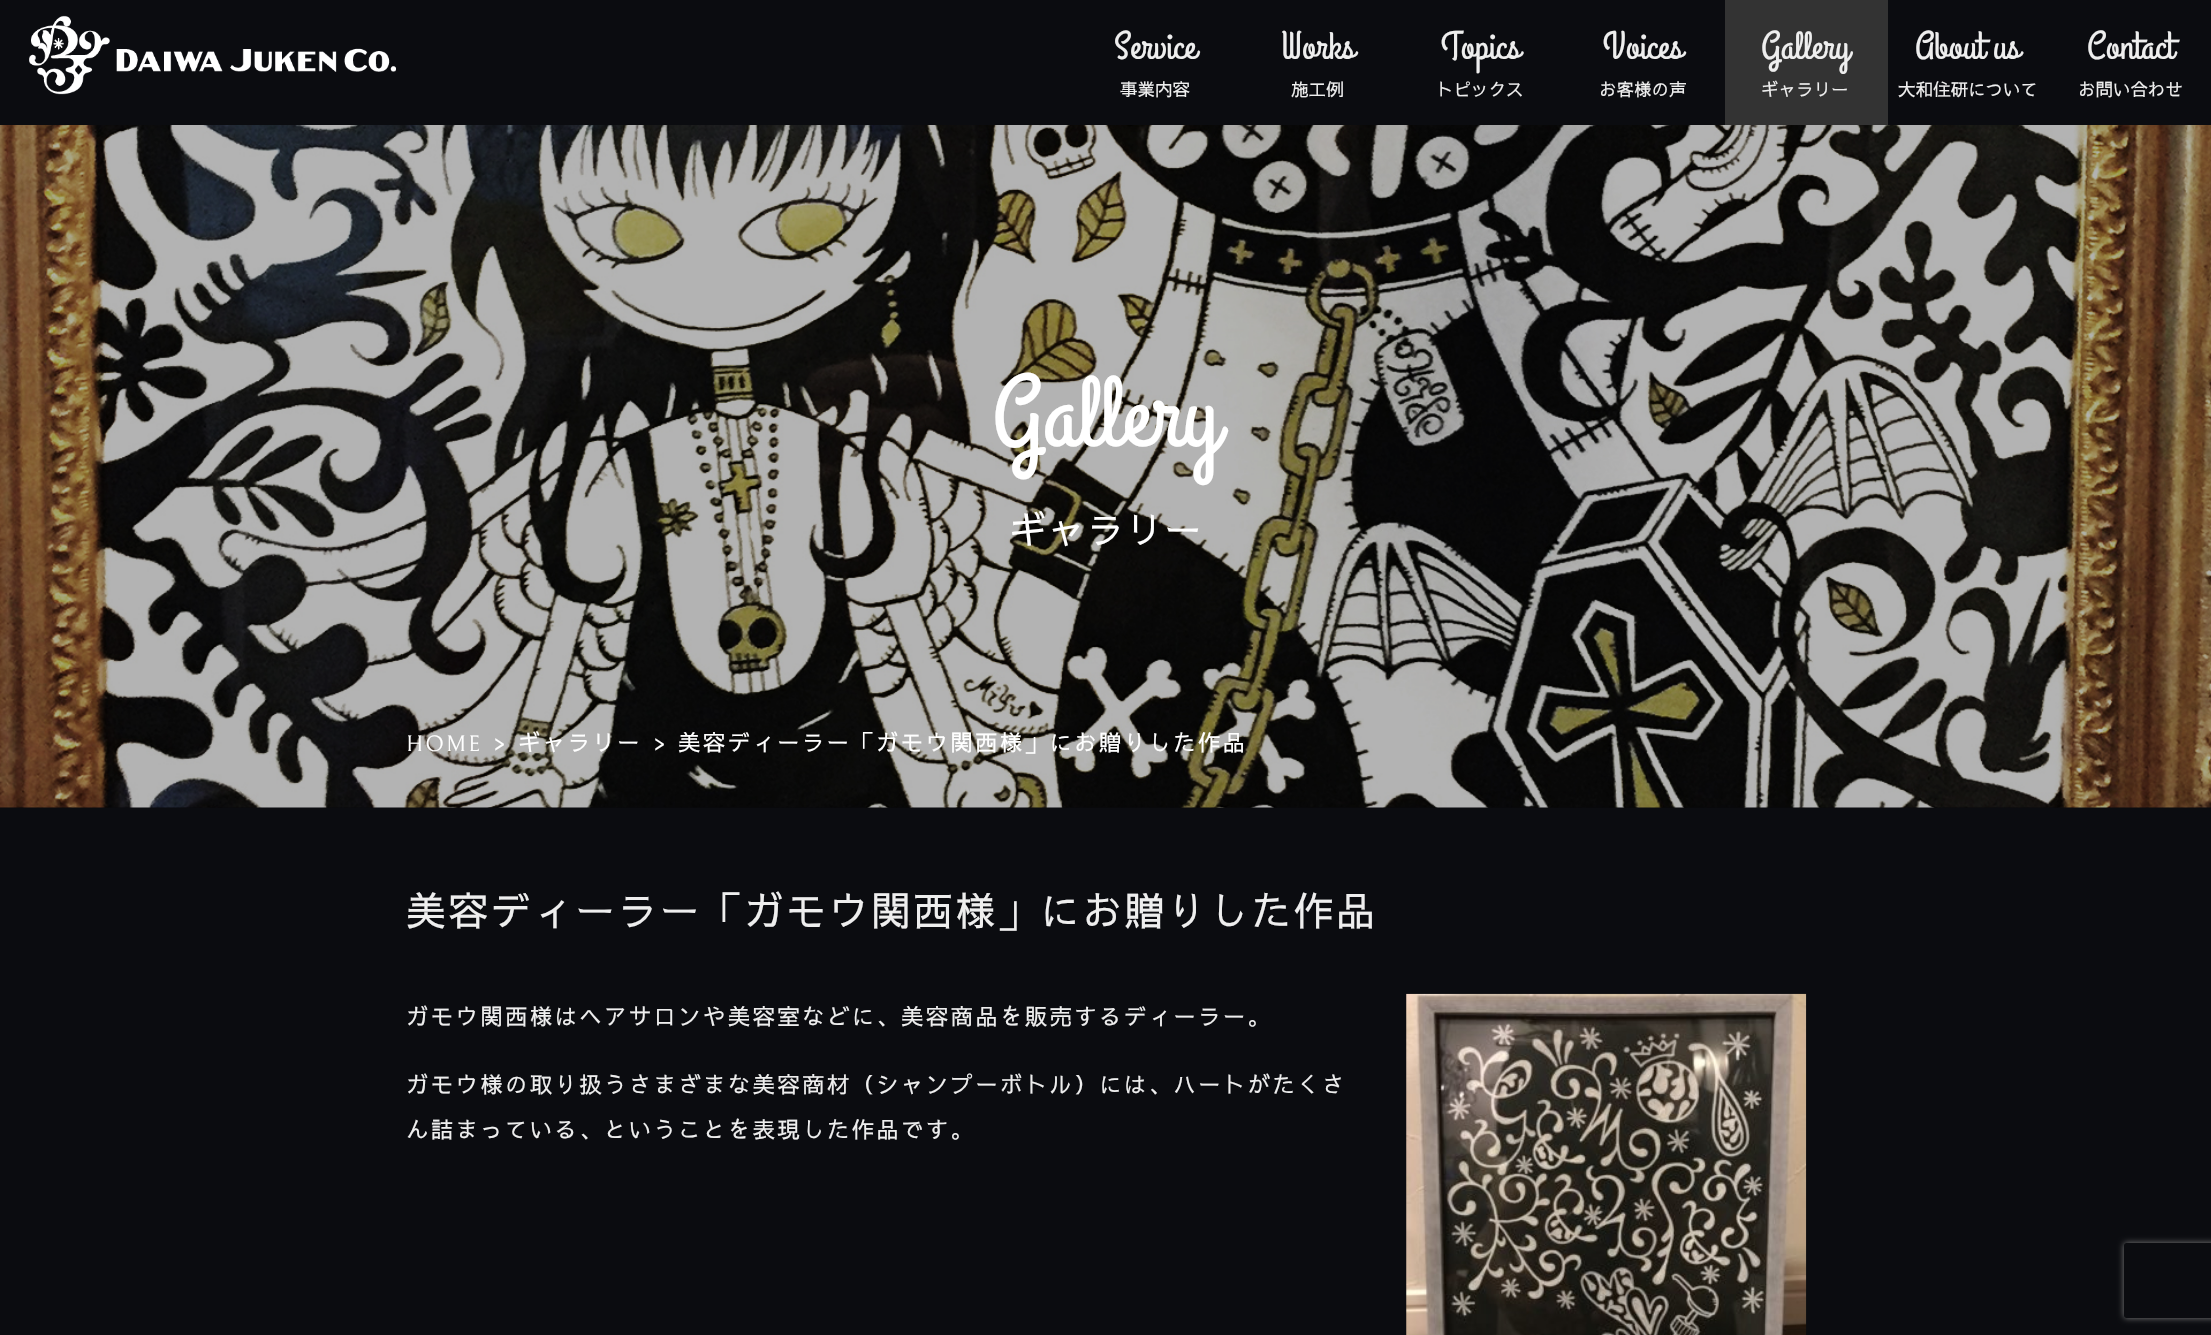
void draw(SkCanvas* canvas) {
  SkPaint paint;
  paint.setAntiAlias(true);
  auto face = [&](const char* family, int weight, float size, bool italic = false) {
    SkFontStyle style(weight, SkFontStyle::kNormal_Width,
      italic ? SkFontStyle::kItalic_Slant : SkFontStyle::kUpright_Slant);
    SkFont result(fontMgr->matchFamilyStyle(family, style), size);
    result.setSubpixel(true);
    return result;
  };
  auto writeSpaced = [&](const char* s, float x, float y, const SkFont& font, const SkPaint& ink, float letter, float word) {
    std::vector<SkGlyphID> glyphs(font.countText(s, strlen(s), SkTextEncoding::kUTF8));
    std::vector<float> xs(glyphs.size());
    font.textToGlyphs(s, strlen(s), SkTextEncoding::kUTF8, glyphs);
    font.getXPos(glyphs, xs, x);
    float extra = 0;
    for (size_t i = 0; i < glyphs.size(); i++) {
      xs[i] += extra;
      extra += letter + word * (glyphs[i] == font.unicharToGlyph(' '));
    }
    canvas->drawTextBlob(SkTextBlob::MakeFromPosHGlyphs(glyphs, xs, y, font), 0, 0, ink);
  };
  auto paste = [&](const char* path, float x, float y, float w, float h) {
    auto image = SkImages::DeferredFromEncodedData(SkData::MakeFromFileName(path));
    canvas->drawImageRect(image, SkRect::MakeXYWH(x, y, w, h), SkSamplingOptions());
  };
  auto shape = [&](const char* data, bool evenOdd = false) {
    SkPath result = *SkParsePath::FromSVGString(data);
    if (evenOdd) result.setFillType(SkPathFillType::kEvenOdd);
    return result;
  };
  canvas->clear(0xff0b0c10);
  paint.setColor(0xff08080b);
  canvas->drawRect(SkRect::MakeXYWH(0, 807, 2211, 1), paint);
  paste("img/1.png", 29, 15, 367, 80);
  paint.setColor(0xff333333);
  canvas->drawRect(SkRect::MakeXYWH(1725, 0, 163, 125), paint);
  paste("img/2.png", 0, 125, 2211, 683);
  paste("img/3.png", 1406, 993, 401, 342);
  canvas->save();
  canvas->clipPath(shape("M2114 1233H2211V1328H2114ZM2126.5 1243H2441.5C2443 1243 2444 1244 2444 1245.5V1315.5C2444 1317 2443 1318 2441.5 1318H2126.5C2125 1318 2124 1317 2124 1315.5V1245.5C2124 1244 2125 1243 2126.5 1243Z", true), true);
  paint.setColor(0xff808080);
  paint.setMaskFilter(SkMaskFilter::MakeBlur(kNormal_SkBlurStyle, 3));
  canvas->drawRoundRect(SkRect::MakeXYWH(2124, 1243, 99, 75), 2.5f, 2.5f, paint);
  paint.setMaskFilter(nullptr);
  canvas->restore();
  auto f0 = face("Grand Hotel", 400, 39);
  paint.setColor(0xffeeeeee);
  canvas->drawString("Service", 1114, 58, f0, paint);
  auto f1 = face("Sawarabi Gothic", 400, 17.5f);
  canvas->drawString("事業内容", 1120, 96, f1, paint);
  canvas->drawString("Works", 1281, 58, f0, paint);
  canvas->drawString("施工例", 1291, 96, f1, paint);
  canvas->drawString("Topics", 1441, 58, f0, paint);
  canvas->drawString("トピックス", 1436, 96, f1, paint);
  canvas->drawString("Voices", 1603, 58, f0, paint);
  canvas->drawString("お客様の声", 1599, 96, f1, paint);
  canvas->drawString("Gallery", 1761, 58, f0, paint);
  canvas->drawString("ギャラリー", 1761, 96, f1, paint);
  canvas->drawString("About us", 1915, 58, f0, paint);
  canvas->drawString("大和住研について", 1898, 96, f1, paint);
  canvas->drawString("Contact", 2087, 58, f0, paint);
  canvas->drawString("お問い合わせ", 2078, 96, f1, paint);
  auto f2 = face("Grand Hotel", 400, 100);
  paint.setColor(0xffffffff);
  canvas->drawString("Gallery", 992, 444, f2, paint);
  auto f3 = face("Sawarabi Gothic", 400, 37.5f);
  writeSpaced("ギャラリー", 1009, 544, f3, paint, 1.25f, 0);
  auto f4 = face("Bellefair", 400, 22.5f);
  writeSpaced("HOME", 406, 751, f4, paint, 2.25f, 0);
  auto f5 = face("Sawarabi Gothic", 400, 22.5f);
  {
    const struct { const char* s; float x, y; } items[] = {
      {">", 494, 751},
      {"ギャラリー", 518, 751},
      {">", 654, 751},
      {"美容ディーラー「ガモウ関西様」にお贈りした作品", 678, 751},
    };
    for (auto [s, x, y] : items) {
      writeSpaced(s, x, y, f5, paint, 2.25f, 0);
    }
  }
  auto f6 = face("Sawarabi Gothic", 400, 40);
  paint.setColor(0xffeeeeee);
  writeSpaced("美容ディーラー「ガモウ関西様」にお贈りした作品", 406, 926, f6, paint, 2.25f, 0);
  {
    const struct { const char* s; float x, y; } items[] = {
      {"ガモウ関西様はヘアサロンや美容室などに、美容商品を販売するディーラー。", 406, 1025},
      {"ガモウ様の取り扱うさまざまな美容商材（シャンプーボトル）には、ハートがたくさ", 406, 1093},
      {"ん詰まっている、ということを表現した作品です。", 406, 1138},
    };
    for (auto [s, x, y] : items) {
      writeSpaced(s, x, y, f5, paint, 2.25f, 0);
    }
  }
}
